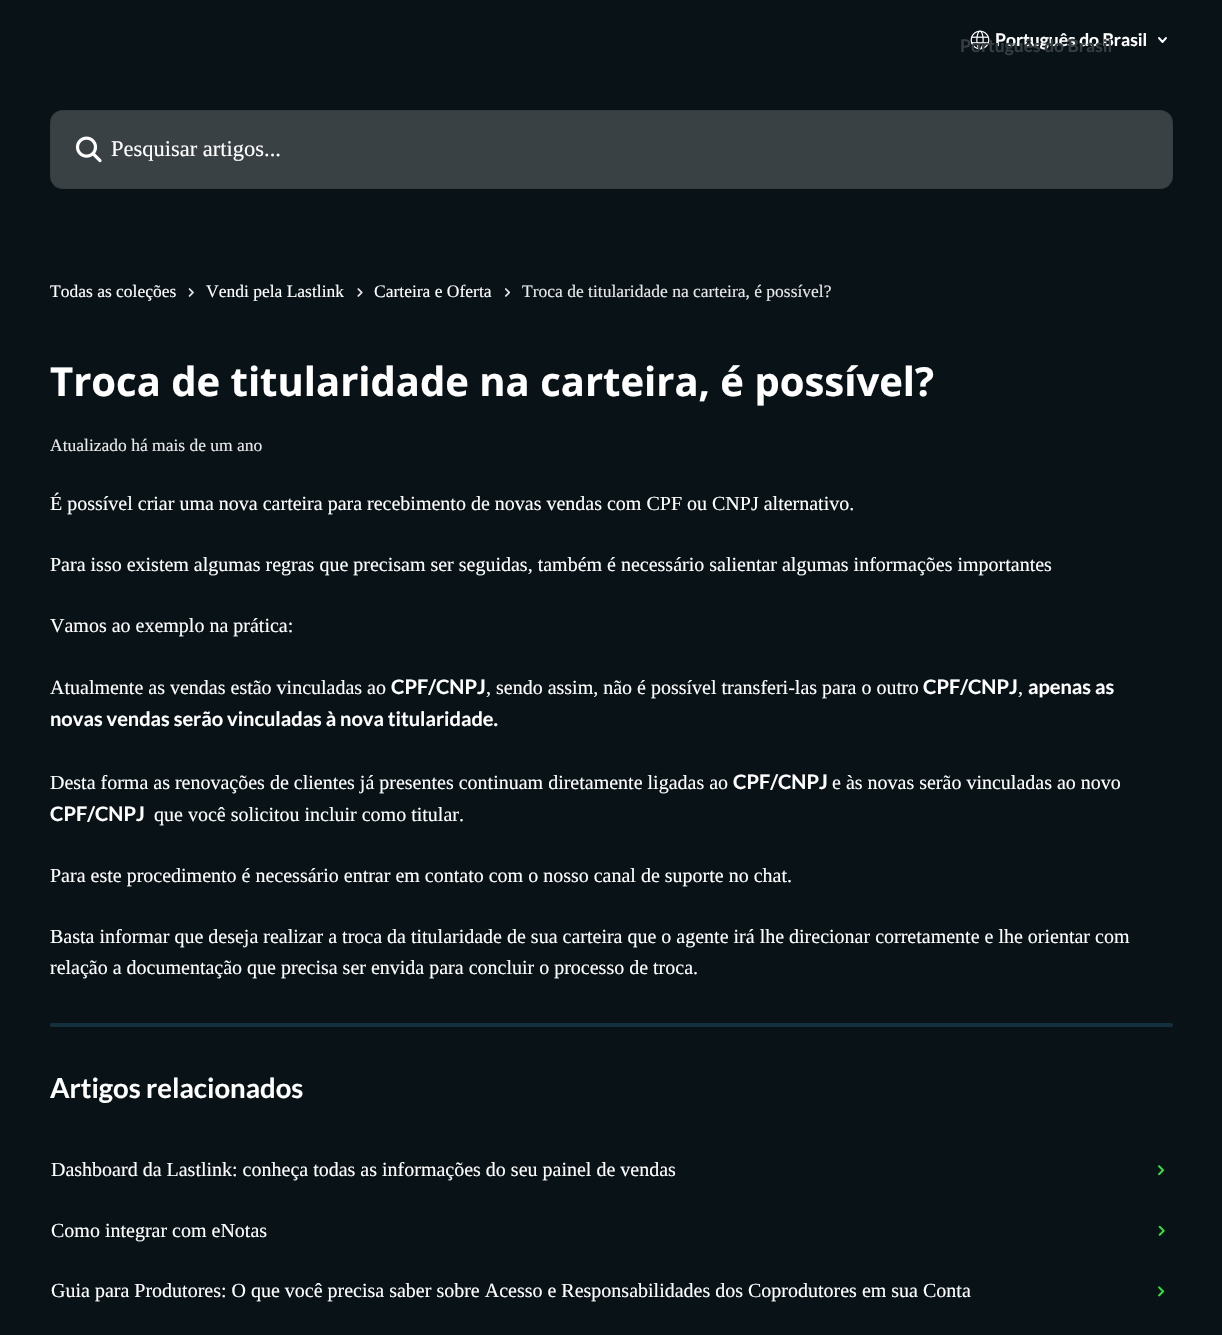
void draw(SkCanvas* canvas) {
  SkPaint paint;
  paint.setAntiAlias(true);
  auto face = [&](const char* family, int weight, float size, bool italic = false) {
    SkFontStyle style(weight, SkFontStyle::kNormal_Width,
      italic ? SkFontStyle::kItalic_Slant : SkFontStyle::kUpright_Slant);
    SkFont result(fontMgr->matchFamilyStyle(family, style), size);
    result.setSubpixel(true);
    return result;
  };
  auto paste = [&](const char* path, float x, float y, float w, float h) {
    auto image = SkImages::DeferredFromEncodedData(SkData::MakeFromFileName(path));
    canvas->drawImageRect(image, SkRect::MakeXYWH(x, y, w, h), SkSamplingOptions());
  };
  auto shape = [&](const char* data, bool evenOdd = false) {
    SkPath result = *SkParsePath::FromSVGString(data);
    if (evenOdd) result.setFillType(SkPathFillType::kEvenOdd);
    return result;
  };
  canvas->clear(0xff081217);
  paste("img/1.png", 970, 30, 20, 20);
  paint.setStroke(true);
  paint.setStrokeWidth(1.9f);
  paint.setStrokeCap(SkPaint::kRound_Cap);
  paint.setStrokeJoin(SkPaint::kRound_Join);
  paint.setColor(0xffffffff);
  canvas->drawPath(shape("M1159 38L1162.5 42L1166 38"), paint);
  paint.setStroke(false);
  paint.setColor(0xff394145);
  canvas->drawRoundRect(SkRect::MakeXYWH(50, 110, 1123, 79), 13, 13, paint);
  paint.setStroke(true);
  paint.setStrokeWidth(1);
  paint.setStrokeCap(SkPaint::kButt_Cap);
  paint.setStrokeJoin(SkPaint::kMiter_Join);
  paint.setColor(0x14000000);
  canvas->drawRoundRect(SkRect::MakeXYWH(50.5f, 110.5f, 1122, 78), 12.5f, 12.5f, paint);
  paste("img/2.png", 75, 136, 27, 27);
  paste("img/3.png", 188, 288, 6, 9);
  paste("img/4.png", 357, 288, 6, 9);
  paste("img/5.png", 505, 288, 6, 9);
  paint.setStroke(false);
  paint.setColor(0xff15303d);
  canvas->drawRoundRect(SkRect::MakeXYWH(50, 1023, 1123, 4), 2, 2, paint);
  paste("img/6.png", 1158, 1165, 6, 11);
  paste("img/7.png", 1158, 1225, 7, 11);
  paste("img/8.png", 1158, 1286, 7, 11);
  auto f0 = face("Lato", 700, 17.5f);
  paint.setColor(0xffffffff);
  canvas->drawString("Português do Brasil", 995, 46, f0, paint);
  paint.setColor(0xff353d41);
  canvas->drawString("Português do Brasil", 960, 52, f0, paint);
  auto f1 = face("Liberation Serif", 400, 22.5f);
  paint.setColor(0xffffffff);
  canvas->drawString("Pesquisar artigos...", 111, 156, f1, paint);
  auto f2 = face("Liberation Serif", 400, 17.5f);
  {
    const struct { const char* s; float x, y; } items[] = {
      {"Todas as coleções", 50, 297},
      {"Vendi pela Lastlink", 206, 297},
      {"Carteira e Oferta", 374, 297},
    };
    for (auto [s, x, y] : items) {
      canvas->drawString(s, x, y, f2, paint);
    }
  }
  paint.setColor(0xffe8e8e8);
  canvas->drawString("Troca de titularidade na carteira, é possível?", 522, 297, f2, paint);
  auto f3 = face("Open Sans", 700, 40);
  paint.setColor(0xffffffff);
  canvas->drawString("Troca de titularidade na carteira, é possível?", 50, 396, f3, paint);
  paint.setColor(0xffe8e8e8);
  canvas->drawString("Atualizado há mais de um ano", 50, 451, f2, paint);
  auto f4 = face("Liberation Serif", 400, 20);
  paint.setColor(0xffffffff);
  {
    const struct { const char* s; float x, y; } items[] = {
      {"É possível criar uma nova carteira para recebimento de novas vendas com CPF ou CNPJ alternativo.", 50, 510},
      {"Para isso existem algumas regras que precisam ser seguidas, também é necessário salientar algumas informações importantes", 50, 571},
      {"Vamos ao exemplo na prática:", 50, 632},
      {"Atualmente as vendas estão vinculadas ao", 50, 694},
    };
    for (auto [s, x, y] : items) {
      canvas->drawString(s, x, y, f4, paint);
    }
  }
  auto f5 = face("Lato", 700, 20);
  canvas->drawString("CPF/CNPJ", 391, 694, f5, paint);
  canvas->drawString(", sendo assim, não é possível transferi-las para o outro", 486, 694, f4, paint);
  canvas->drawString("CPF/CNPJ", 923, 694, f5, paint);
  canvas->drawString(",", 1018, 694, f4, paint);
  canvas->drawString("apenas as", 1028, 694, f5, paint);
  canvas->drawString("novas vendas serão vinculadas à nova titularidade.", 50, 726, f5, paint);
  canvas->drawString("Desta forma as renovações de clientes já presentes continuam diretamente ligadas ao", 50, 789, f4, paint);
  canvas->drawString("CPF/CNPJ", 733, 789, f5, paint);
  canvas->drawString("e às novas serão vinculadas ao novo", 832, 789, f4, paint);
  canvas->drawString("CPF/CNPJ", 50, 821, f5, paint);
  {
    const struct { const char* s; float x, y; } items[] = {
      {"que você solicitou incluir como titular.", 154, 821},
      {"Para este procedimento é necessário entrar em contato com o nosso canal de suporte no chat.", 50, 882},
      {"Basta informar que deseja realizar a troca da titularidade de sua carteira que o agente irá lhe direcionar corretamente e lhe orientar com", 50, 943},
      {"relação a documentação que precisa ser envida para concluir o processo de troca.", 50, 974},
    };
    for (auto [s, x, y] : items) {
      canvas->drawString(s, x, y, f4, paint);
    }
  }
  auto f6 = face("Lato", 700, 27.5f);
  canvas->drawString("Artigos relacionados", 50, 1098, f6, paint);
  {
    const struct { const char* s; float x, y; } items[] = {
      {"Dashboard da Lastlink: conheça todas as informações do seu painel de vendas", 51, 1176},
      {"Como integrar com eNotas", 51, 1237},
      {"Guia para Produtores: O que você precisa saber sobre Acesso e Responsabilidades dos Coprodutores em sua Conta", 51, 1297},
    };
    for (auto [s, x, y] : items) {
      canvas->drawString(s, x, y, f4, paint);
    }
  }
}
